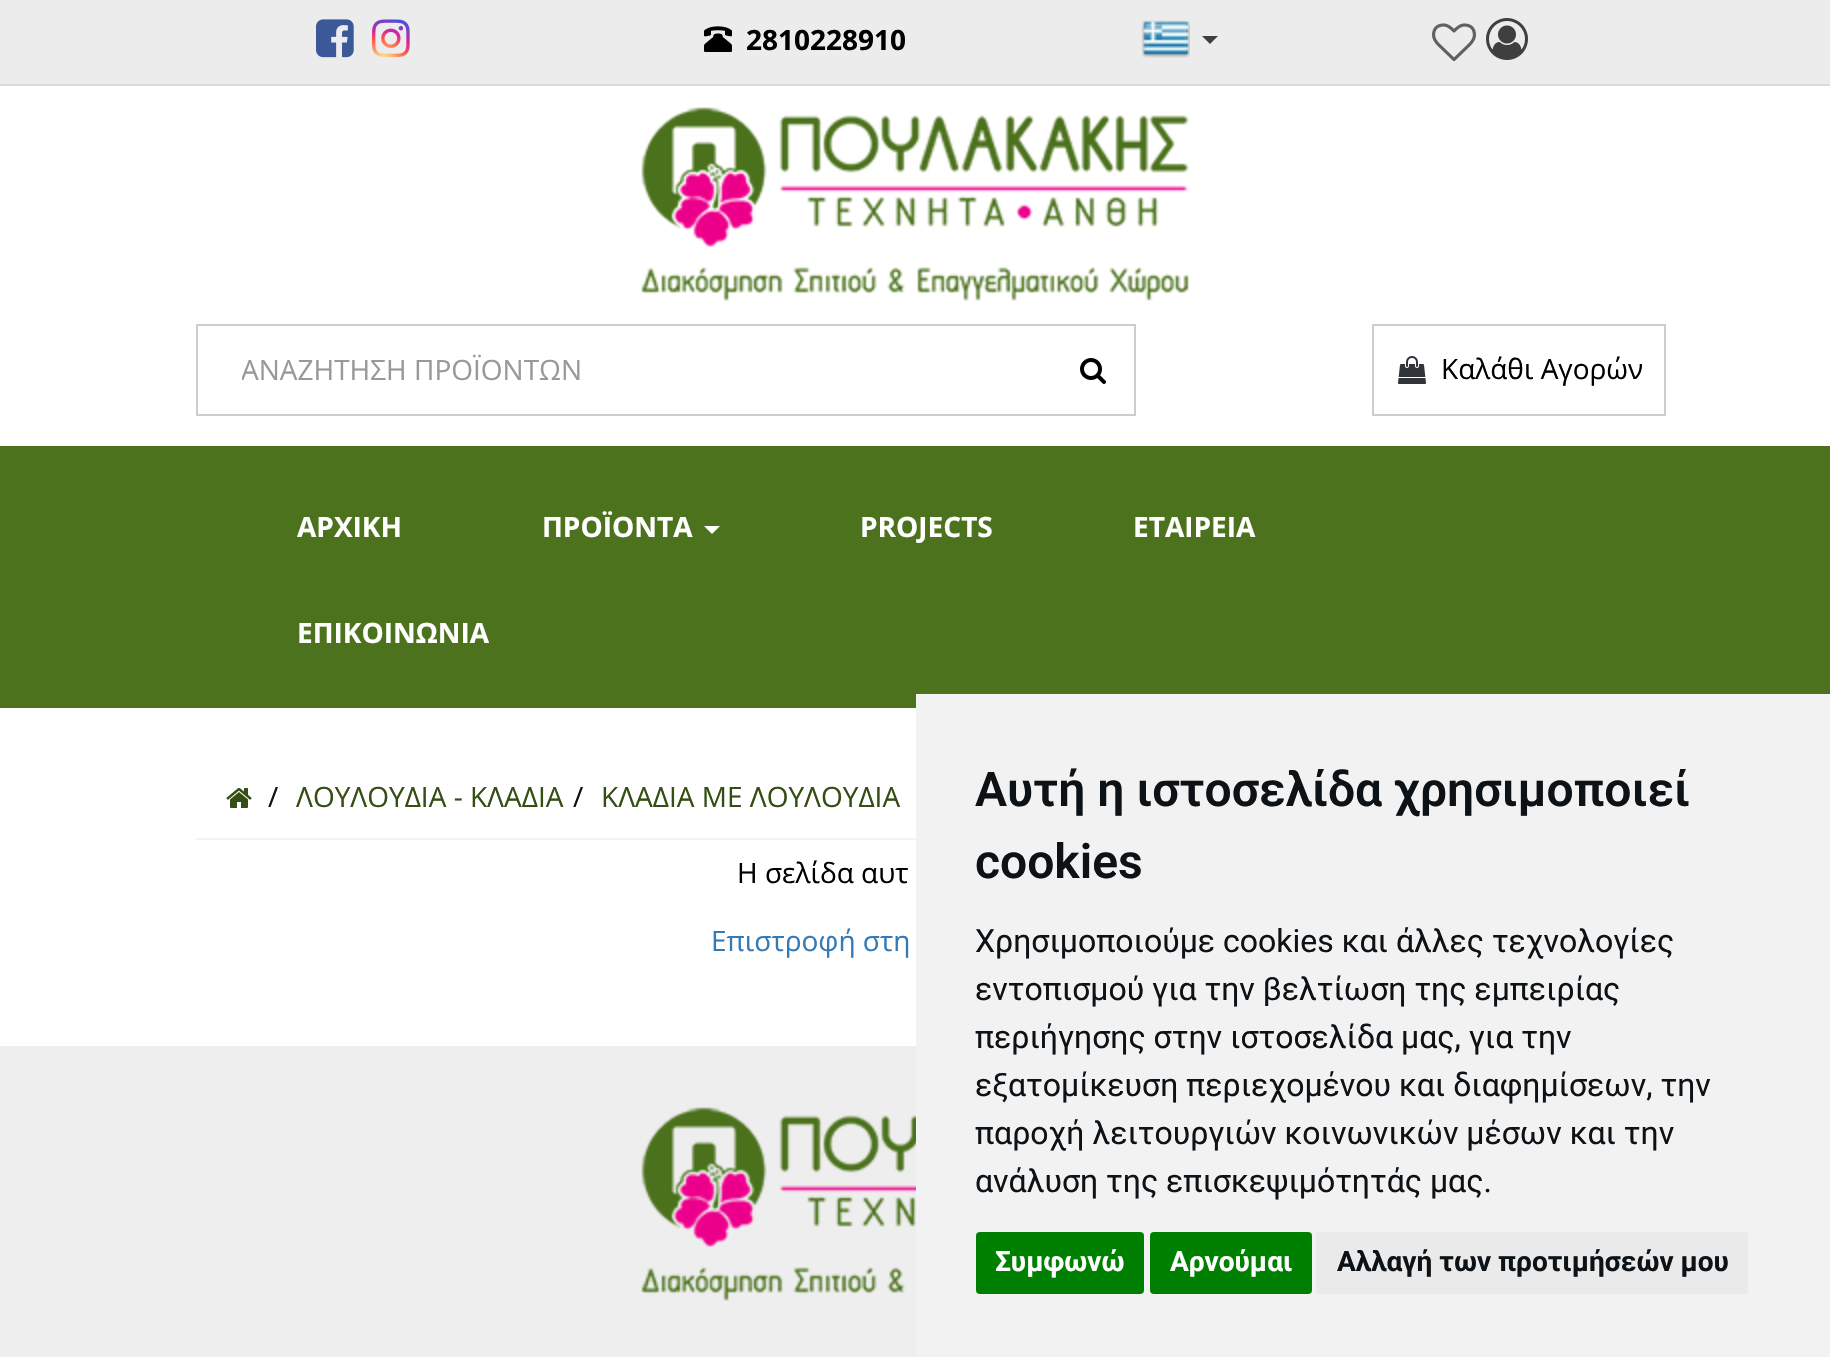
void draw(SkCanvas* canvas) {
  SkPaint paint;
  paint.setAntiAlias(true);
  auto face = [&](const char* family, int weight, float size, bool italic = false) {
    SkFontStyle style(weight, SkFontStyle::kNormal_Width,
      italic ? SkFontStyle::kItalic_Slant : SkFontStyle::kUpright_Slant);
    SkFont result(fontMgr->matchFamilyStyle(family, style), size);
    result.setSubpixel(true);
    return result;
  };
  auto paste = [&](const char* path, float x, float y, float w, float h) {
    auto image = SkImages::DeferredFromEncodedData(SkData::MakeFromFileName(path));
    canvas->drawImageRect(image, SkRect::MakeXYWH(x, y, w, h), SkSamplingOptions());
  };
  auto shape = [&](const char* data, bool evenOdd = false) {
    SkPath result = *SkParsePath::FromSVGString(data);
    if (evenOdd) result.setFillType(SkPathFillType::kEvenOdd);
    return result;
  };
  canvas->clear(0xffffffff);
  paint.setColor(0xffececec);
  canvas->drawRect(SkRect::MakeXYWH(0, 0, 1830, 84), paint);
  paint.setColor(0xffdadada);
  canvas->drawRect(SkRect::MakeXYWH(0, 84, 1830, 2), paint);
  paste("img/1.png", 316, 19, 38, 39);
  paste("img/2.png", 372, 19, 38, 39);
  paste("img/3.png", 704, 26, 28, 26);
  paste("img/4.png", 1142, 20, 48, 38);
  paint.setColor(0xff3f3f3f);
  canvas->drawPath(shape("M1202 36H1218L1210 44Z"), paint);
  paste("img/5.png", 1432, 23, 44, 39);
  paste("img/6.png", 1486, 18, 42, 42);
  paste("img/7.png", 641, 107, 548, 194);
  paint.setStroke(true);
  paint.setStrokeWidth(2);
  paint.setColor(0xffcccccc);
  canvas->drawRect(SkRect::MakeXYWH(197, 325, 938, 90), paint);
  paste("img/8.png", 1080, 358, 26, 26);
  canvas->drawRect(SkRect::MakeXYWH(1373, 325, 292, 90), paint);
  paste("img/9.png", 1398, 356, 28, 28);
  paint.setStroke(false);
  paint.setColor(0xff4c721d);
  canvas->drawRect(SkRect::MakeXYWH(0, 446, 1830, 262), paint);
  paint.setColor(0xffffffff);
  canvas->drawPath(shape("M704 526H720L712 534Z"), paint);
  paint.setColor(0xfff4f4f4);
  canvas->drawRect(SkRect::MakeXYWH(196, 838, 720, 2), paint);
  paste("img/10.png", 226, 788, 26, 20);
  paint.setColor(0xfff2f2f2);
  canvas->drawRect(SkRect::MakeXYWH(916, 694, 914, 663), paint);
  paint.setColor(0xff008000);
  canvas->drawRoundRect(SkRect::MakeXYWH(976, 1232, 168, 62), 4, 4, paint);
  canvas->drawRoundRect(SkRect::MakeXYWH(1150, 1232, 162, 62), 4, 4, paint);
  paint.setColor(0xffeaeaea);
  canvas->drawRoundRect(SkRect::MakeXYWH(1316, 1232, 432, 62), 4, 4, paint);
  paint.setColor(0xffeeeeee);
  canvas->drawRect(SkRect::MakeXYWH(0, 1046, 916, 311), paint);
  paste("img/11.png", 641, 1107, 275, 194);
  auto f0 = face("Open Sans", 700, 28);
  paint.setColor(0xff000000);
  canvas->drawString("2810228910", 746, 50, f0, paint);
  canvas->save();
  canvas->clipRect(SkRect::MakeXYWH(242, 350, 848, 38));
  auto f1 = face("Open Sans", 400, 28);
  paint.setColor(0xff999999);
  canvas->drawString("ΑΝΑΖΗΤΗΣΗ ΠΡΟΪΟΝΤΩΝ", 241, 380, f1, paint);
  canvas->restore();
  paint.setColor(0xff000000);
  canvas->drawString("Καλάθι Αγορών", 1441, 379, f1, paint);
  paint.setColor(0xffffffff);
  {
    const struct { const char* s; float x, y; } items[] = {
      {"ΑΡΧΙΚΗ", 297, 537},
      {"ΠΡΟΪΟΝΤΑ", 542, 537},
      {"PROJECTS", 860, 537},
      {"ΕΤΑΙΡΕΙΑ", 1133, 537},
      {"ΕΠΙΚΟΙΝΩΝΙΑ", 297, 643},
    };
    for (auto [s, x, y] : items) {
      canvas->drawString(s, x, y, f0, paint);
    }
  }
  paint.setColor(0xff0d1216);
  canvas->drawString("/", 268, 807, f1, paint);
  paint.setColor(0xff344e13);
  canvas->drawString("ΛΟΥΛΟΥΔΙΑ - ΚΛΑΔΙΑ", 296, 807, f1, paint);
  paint.setColor(0xff0d1216);
  canvas->drawString("/", 573, 807, f1, paint);
  paint.setColor(0xff344e13);
  canvas->drawString("ΚΛΑΔΙΑ ΜΕ ΛΟΥΛΟΥΔΙΑ", 601, 807, f1, paint);
  paint.setColor(0xff000000);
  canvas->drawString("Η σελίδα αυτ", 737, 883, f1, paint);
  paint.setColor(0xff337ab7);
  canvas->drawString("Επιστροφή στη", 711, 951, f1, paint);
  auto f2 = face("Roboto", 600, 48);
  paint.setColor(0xff0d1216);
  canvas->drawString("Αυτή η ιστοσελίδα χρησιμοποιεί", 975, 806, f2, paint);
  canvas->drawString("cookies", 975, 878, f2, paint);
  auto f3 = face("Roboto", 400, 32);
  {
    const struct { const char* s; float x, y; } items[] = {
      {"Χρησιμοποιούμε cookies και άλλες τεχνολογίες", 975, 952},
      {"εντοπισμού για την βελτίωση της εμπειρίας", 975, 1000},
      {"περιήγησης στην ιστοσελίδα μας, για την", 975, 1048},
      {"εξατομίκευση περιεχομένου και διαφημίσεων, την", 975, 1096},
      {"παροχή λειτουργιών κοινωνικών μέσων και την", 975, 1144},
      {"ανάλυση της επισκεψιμότητάς μας.", 975, 1192},
    };
    for (auto [s, x, y] : items) {
      canvas->drawString(s, x, y, f3, paint);
    }
  }
  auto f4 = face("Roboto", 700, 28);
  paint.setColor(0xffffffff);
  canvas->drawString("Συμφωνώ", 995, 1271, f4, paint);
  canvas->drawString("Αρνούμαι", 1170, 1271, f4, paint);
  paint.setColor(0xff0d1216);
  canvas->drawString("Αλλαγή των προτιμήσεών μου", 1337, 1271, f4, paint);
}
